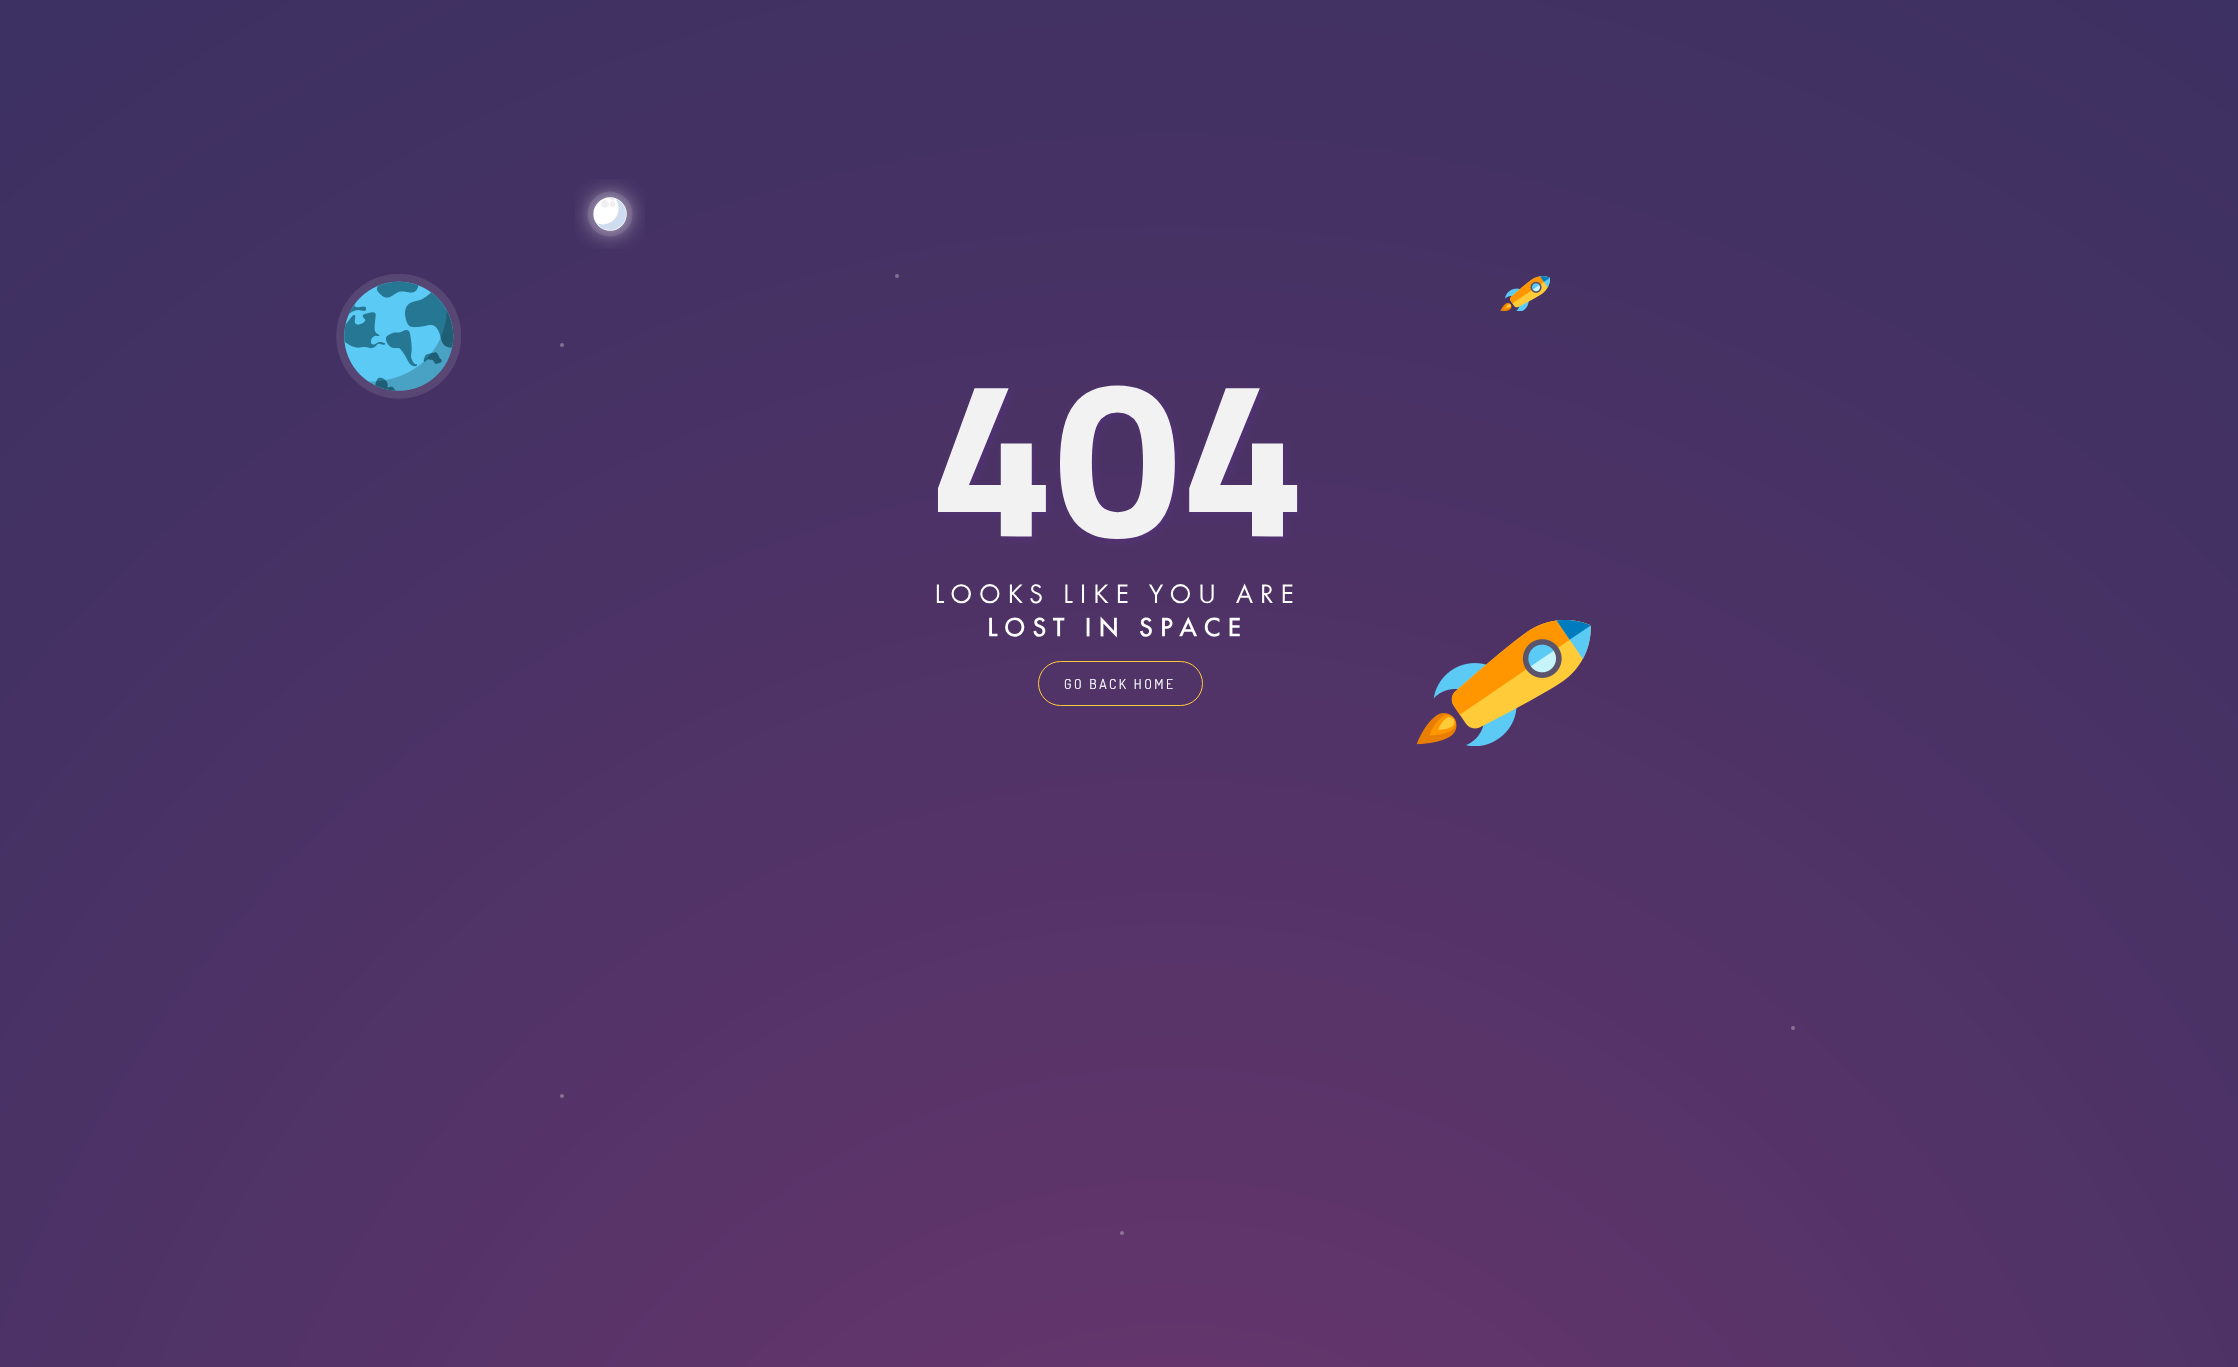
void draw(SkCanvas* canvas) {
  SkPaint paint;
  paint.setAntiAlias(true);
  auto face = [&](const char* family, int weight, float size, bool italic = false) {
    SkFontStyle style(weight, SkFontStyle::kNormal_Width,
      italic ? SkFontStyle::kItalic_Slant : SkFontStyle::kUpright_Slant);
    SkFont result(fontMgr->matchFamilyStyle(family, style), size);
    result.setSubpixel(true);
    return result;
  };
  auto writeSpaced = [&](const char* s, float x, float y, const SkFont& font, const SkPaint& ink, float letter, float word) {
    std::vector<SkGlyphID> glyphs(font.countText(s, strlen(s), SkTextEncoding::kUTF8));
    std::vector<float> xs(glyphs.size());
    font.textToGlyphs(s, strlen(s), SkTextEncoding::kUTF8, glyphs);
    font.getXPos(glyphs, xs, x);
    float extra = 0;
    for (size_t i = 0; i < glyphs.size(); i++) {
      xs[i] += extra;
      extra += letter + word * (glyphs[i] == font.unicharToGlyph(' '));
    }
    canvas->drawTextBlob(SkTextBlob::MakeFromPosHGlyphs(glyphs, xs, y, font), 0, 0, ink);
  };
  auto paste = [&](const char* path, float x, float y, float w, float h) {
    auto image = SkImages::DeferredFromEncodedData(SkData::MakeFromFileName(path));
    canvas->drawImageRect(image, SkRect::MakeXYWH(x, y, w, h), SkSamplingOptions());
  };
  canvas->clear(0xffffffff);
  paste("img/1.png", 0, 0, 2238, 1367);
  paste("img/2.png", 575, 179, 70, 70);
  paste("img/3.png", 336, 274, 125, 125);
  paste("img/4.png", 1500, 276, 50, 35);
  paste("img/5.png", 1416, 620, 175, 126);
  paint.setColor(0xff7e7093);
  canvas->drawCircle(897, 276, 2, paint);
  paint.setColor(0xff7e6f93);
  canvas->drawCircle(562, 345, 2, paint);
  paint.setColor(0xff877095);
  canvas->drawCircle(1793, 1028, 2, paint);
  canvas->drawCircle(562, 1096, 2, paint);
  paint.setColor(0xff8f7297);
  canvas->drawCircle(1122, 1233, 2, paint);
  paste("img/6.png", 936, 385, 365, 253);
  paint.setStroke(true);
  paint.setStrokeWidth(1);
  paint.setColor(0xffffcb39);
  canvas->drawRoundRect(SkRect::MakeXYWH(1038.5f, 661.5f, 164, 44), 22, 22, paint);
  auto f0 = face("Dosis", 400, 13.75f);
  paint.setStroke(false);
  paint.setColor(0xffffffff);
  writeSpaced("GO BACK HOME", 1064, 689, f0, paint, 2.5f, 0);
}
